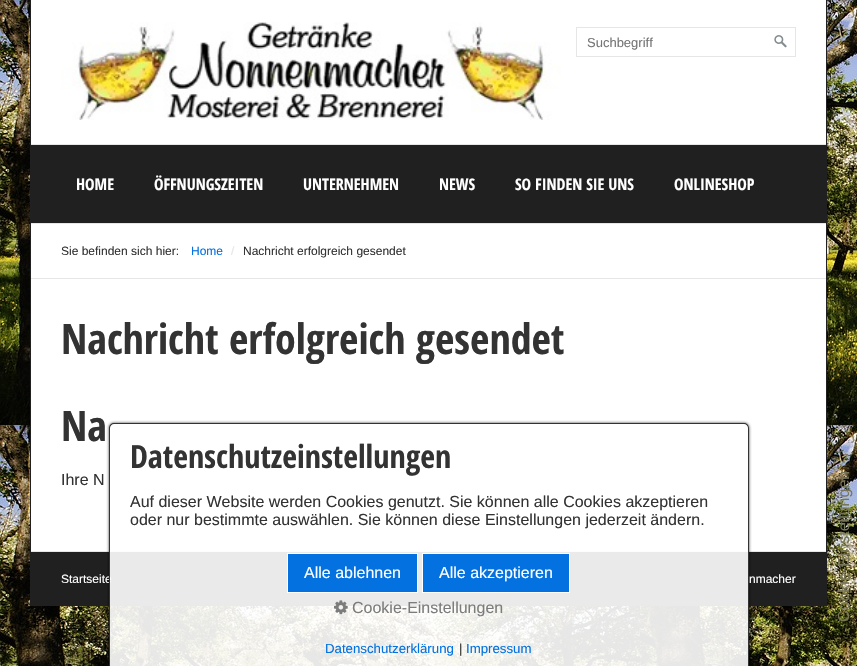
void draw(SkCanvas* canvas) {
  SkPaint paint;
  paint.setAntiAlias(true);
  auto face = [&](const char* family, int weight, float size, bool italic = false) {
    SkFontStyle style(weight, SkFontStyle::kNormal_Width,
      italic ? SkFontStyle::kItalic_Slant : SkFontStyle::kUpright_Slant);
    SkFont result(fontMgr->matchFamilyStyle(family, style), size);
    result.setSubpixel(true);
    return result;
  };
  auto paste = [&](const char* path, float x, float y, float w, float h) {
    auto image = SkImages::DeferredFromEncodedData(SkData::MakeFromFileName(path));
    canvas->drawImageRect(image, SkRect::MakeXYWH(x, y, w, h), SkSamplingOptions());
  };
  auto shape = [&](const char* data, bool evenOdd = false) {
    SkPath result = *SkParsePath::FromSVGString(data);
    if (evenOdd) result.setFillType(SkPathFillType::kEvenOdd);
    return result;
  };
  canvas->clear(0xffffffff);
  paste("img/1.png", 0, 0, 857, 666);
  {
    const struct { float x, y, w, h; SkColor color; } items[] = {
      {826, 0, 1, 606, 0xff202020},
      {30, 0, 1, 606, 0xff202020},
      {31, 0, 795, 144, 0xffffffff},
      {31, 144, 795, 1, 0xffe6e6e6},
    };
    for (auto [x, y, w, h, color] : items) {
      paint.setColor(color);
      canvas->drawRect(SkRect::MakeXYWH(x, y, w, h), paint);
    }
  }
  paste("img/2.png", 61, 22, 500, 98);
  paint.setStroke(true);
  paint.setStrokeWidth(1);
  canvas->drawRect(SkRect::MakeXYWH(576.5f, 27.5f, 219, 29), paint);
  paste("img/3.png", 774, 35, 13, 13);
  paint.setStroke(false);
  {
    const struct { float x, y, w, h; SkColor color; } items[] = {
      {31, 145, 795, 78, 0xff202020},
      {31, 223, 795, 1, 0xffe6e6e6},
      {31, 224, 795, 54, 0xffffffff},
      {31, 278, 795, 1, 0xffe6e6e6},
      {31, 279, 795, 272, 0xffffffff},
      {31, 551, 795, 1, 0xffe6e6e6},
      {31, 552, 795, 54, 0xff202020},
    };
    for (auto [x, y, w, h, color] : items) {
      paint.setColor(color);
      canvas->drawRect(SkRect::MakeXYWH(x, y, w, h), paint);
    }
  }
  canvas->save();
  canvas->clipPath(shape("M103 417H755V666H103ZM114 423H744C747 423 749 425 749 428V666H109V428C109 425 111 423 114 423Z", true), true);
  paint.setColor(0xcc000000);
  paint.setMaskFilter(SkMaskFilter::MakeBlur(kNormal_SkBlurStyle, 1.5f));
  canvas->drawRoundRect(SkRect::MakeXYWH(109, 423, 640, 243), 5, 5, paint);
  paint.setMaskFilter(nullptr);
  canvas->restore();
  auto f0 = face("Liberation Sans", 400, 13);
  paint.setColor(0xff757575);
  canvas->drawString("Suchbegriff", 587, 47, f0, paint);
  auto f1 = face("Open Sans Condensed", 700, 16);
  paint.setColor(0xffffffff);
  {
    const struct { const char* s; float x, y; } items[] = {
      {"HOME", 76, 190},
      {"ÖFFNUNGSZEITEN", 154, 190},
      {"UNTERNEHMEN", 303, 190},
      {"NEWS", 439, 190},
      {"SO FINDEN SIE UNS", 515, 190},
      {"ONLINESHOP", 674, 190},
    };
    for (auto [s, x, y] : items) {
      canvas->drawString(s, x, y, f1, paint);
    }
  }
  auto f2 = face("Liberation Sans", 400, 12);
  paint.setColor(0xff333333);
  canvas->drawString("Sie befinden sich hier:", 61, 255, f2, paint);
  paint.setColor(0xff0371df);
  canvas->drawString("Home", 191, 255, f2, paint);
  paint.setColor(0xffe6e6e6);
  canvas->drawString("/", 231, 255, f2, paint);
  paint.setColor(0xff333333);
  canvas->drawString("Nachricht erfolgreich gesendet", 243, 255, f2, paint);
  auto f3 = face("Open Sans Condensed", 700, 42);
  canvas->drawString("Nachricht erfolgreich gesendet", 61, 354, f3, paint);
  canvas->drawString("Na", 61, 441, f3, paint);
  auto f4 = face("Liberation Sans", 400, 16);
  canvas->drawString("Ihre N", 61, 485, f4, paint);
  paint.setColor(0xffffffff);
  canvas->drawString("Startseite", 61, 583, f2, paint);
  canvas->drawString("nmacher", 749, 583, f2, paint);
  paint.setColor(0xe6ffffff);
  canvas->drawPath(shape("M114 423H744C747 423 749 425 749 428V666H109V428C109 425 111 423 114 423Z"), paint);
  paint.setColor(0xff333333);
  canvas->drawPath(shape("M114 423H744C747 423 749 425 749 428V666H109V428C109 425 111 423 114 423ZM114 424H744C746 424 748 426 748 428V666H110V428C110 426 112 424 114 424Z", true), paint);
  auto f5 = face("Open Sans Condensed", 700, 32);
  canvas->drawString("Datenschutzeinstellungen", 130, 468, f5, paint);
  canvas->drawString("Auf dieser Website werden Cookies genutzt. Sie können alle Cookies akzeptieren", 130, 507, f4, paint);
  canvas->drawString("oder nur bestimmte auswählen. Sie können diese Einstellungen jederzeit ändern.", 130, 525, f4, paint);
  paint.setColor(0xff0371df);
  canvas->drawRect(SkRect::MakeXYWH(287.5f, 553.5f, 130, 39), paint);
  paint.setStroke(true);
  paint.setColor(0xffffffff);
  canvas->drawRect(SkRect::MakeXYWH(287.5f, 553.5f, 130, 39), paint);
  paint.setStroke(false);
  canvas->drawString("Alle ablehnen", 304, 578, f4, paint);
  paint.setColor(0xff0371df);
  canvas->drawRect(SkRect::MakeXYWH(422.5f, 553.5f, 147, 39), paint);
  paint.setStroke(true);
  paint.setColor(0xffffffff);
  canvas->drawRect(SkRect::MakeXYWH(422.5f, 553.5f, 147, 39), paint);
  paint.setStroke(false);
  canvas->drawString("Alle akzeptieren", 439, 578, f4, paint);
  paste("img/4.png", 334, 600, 14, 15);
  paint.setColor(0xff7c7c7c);
  canvas->drawString("Cookie-Einstellungen", 352, 613, f4, paint);
  auto f6 = face("Liberation Sans", 400, 13.25f);
  paint.setColor(0xff0371df);
  canvas->drawString("Datenschutzerklärung", 325, 653, f6, paint);
  paint.setColor(0xff333333);
  canvas->drawString("|", 459, 653, f6, paint);
  paint.setColor(0xff0371df);
  canvas->drawString("Impressum", 466, 653, f6, paint);
  paint.setColor(0xff76755a);
  canvas->save();
  canvas->rotate(-90, 849, 622);
  canvas->drawString("Cookie-Einstellungen", 849, 622, f4, paint);
  canvas->restore();
}
